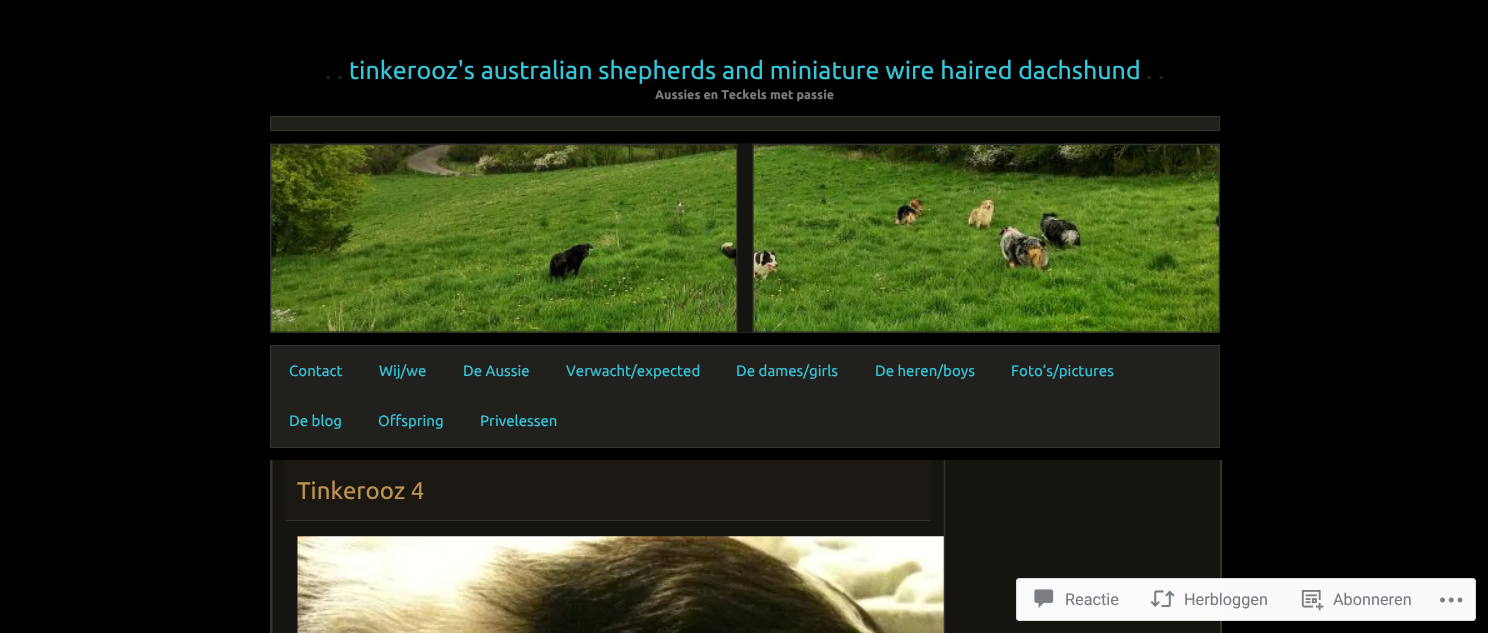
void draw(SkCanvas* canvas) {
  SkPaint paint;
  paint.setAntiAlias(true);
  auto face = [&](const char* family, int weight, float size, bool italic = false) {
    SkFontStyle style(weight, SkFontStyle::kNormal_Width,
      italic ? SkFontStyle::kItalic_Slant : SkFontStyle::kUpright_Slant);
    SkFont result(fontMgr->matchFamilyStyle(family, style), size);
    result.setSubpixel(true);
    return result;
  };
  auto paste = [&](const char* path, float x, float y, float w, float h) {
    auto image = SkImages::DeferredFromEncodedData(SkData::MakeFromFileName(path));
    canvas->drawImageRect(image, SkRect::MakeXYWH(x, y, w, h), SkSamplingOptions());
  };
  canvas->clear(0xff000000);
  paint.setColor(0xff22201d);
  canvas->drawRect(SkRect::MakeXYWH(270.5f, 116.5f, 949, 14), paint);
  paint.setStroke(true);
  paint.setStrokeWidth(1);
  paint.setColor(0xff363430);
  canvas->drawRect(SkRect::MakeXYWH(270.5f, 116.5f, 949, 14), paint);
  paste("img/1.png", 270, 143, 950, 190);
  paste("img/2.png", 270, 143, 950, 190);
  paint.setStroke(false);
  paint.setColor(0xff22201d);
  canvas->drawRect(SkRect::MakeXYWH(270.5f, 345.5f, 949, 102), paint);
  paint.setStroke(true);
  paint.setColor(0xff363430);
  canvas->drawRect(SkRect::MakeXYWH(270.5f, 345.5f, 949, 102), paint);
  paste("img/3.png", 272, 460, 949, 173);
  paint.setStroke(false);
  {
    const struct { float x, y, w, h; SkColor color; } items[] = {
      {1221, 460, 1, 173, 0xff363430},
      {270, 460, 2, 173, 0xff363430},
      {944, 460, 1, 173, 0xff363430},
      {285, 460, 646, 60, 0xff1b1814},
      {285, 520, 646, 1, 0xff35302a},
    };
    for (auto [x, y, w, h, color] : items) {
      paint.setColor(color);
      canvas->drawRect(SkRect::MakeXYWH(x, y, w, h), paint);
    }
  }
  paste("img/4.png", 297, 536, 647, 97);
  paint.setColor(0xfaffffff);
  canvas->drawRoundRect(SkRect::MakeXYWH(1016, 578, 460, 43), 4, 4, paint);
  paint.setStroke(true);
  paint.setColor(0xfadcdcde);
  canvas->drawRoundRect(SkRect::MakeXYWH(1016.5f, 578.5f, 459, 42), 3.5f, 3.5f, paint);
  paste("img/5.png", 1034, 589, 20, 19);
  paste("img/6.png", 1150, 590, 25, 18);
  paste("img/7.png", 1301, 590, 23, 21);
  paste("img/8.png", 1440, 597, 23, 6);
  auto f0 = face("Ubuntu", 400, 25);
  paint.setStroke(false);
  paint.setColor(0xff222222);
  canvas->drawString(". .", 325, 79, f0, paint);
  paint.setColor(0xff33c7db);
  canvas->drawString("tinkerooz's australian shepherds and miniature wire haired dachshund", 349, 79, f0, paint);
  paint.setColor(0xff222222);
  canvas->drawString(". .", 1146, 79, f0, paint);
  auto f1 = face("Ubuntu", 700, 12.5f);
  paint.setColor(0xff7c7c7c);
  canvas->drawString("Aussies en Teckels met passie", 655, 99, f1, paint);
  auto f2 = face("Ubuntu", 400, 15);
  paint.setColor(0xff33c7db);
  {
    const struct { const char* s; float x, y; } items[] = {
      {"Contact", 289, 376},
      {"Wij/we", 379, 376},
      {"De Aussie", 463, 376},
      {"Verwacht/expected", 566, 376},
      {"De dames/girls", 736, 376},
      {"De heren/boys", 875, 376},
      {"Foto’s/pictures", 1011, 376},
      {"De blog", 289, 426},
      {"Offspring", 378, 426},
      {"Privelessen", 480, 426},
    };
    for (auto [s, x, y] : items) {
      canvas->drawString(s, x, y, f2, paint);
    }
  }
  auto f3 = face("Ubuntu", 400, 24);
  paint.setColor(0xffbd934f);
  canvas->drawString("Tinkerooz 4", 297, 499, f3, paint);
  auto f4 = face("Roboto", 400, 16.25f);
  paint.setColor(0xff767a80);
  {
    const struct { const char* s; float x, y; } items[] = {
      {"Reactie", 1065, 605},
      {"Herbloggen", 1184, 605},
      {"Abonneren", 1333, 605},
    };
    for (auto [s, x, y] : items) {
      canvas->drawString(s, x, y, f4, paint);
    }
  }
}
